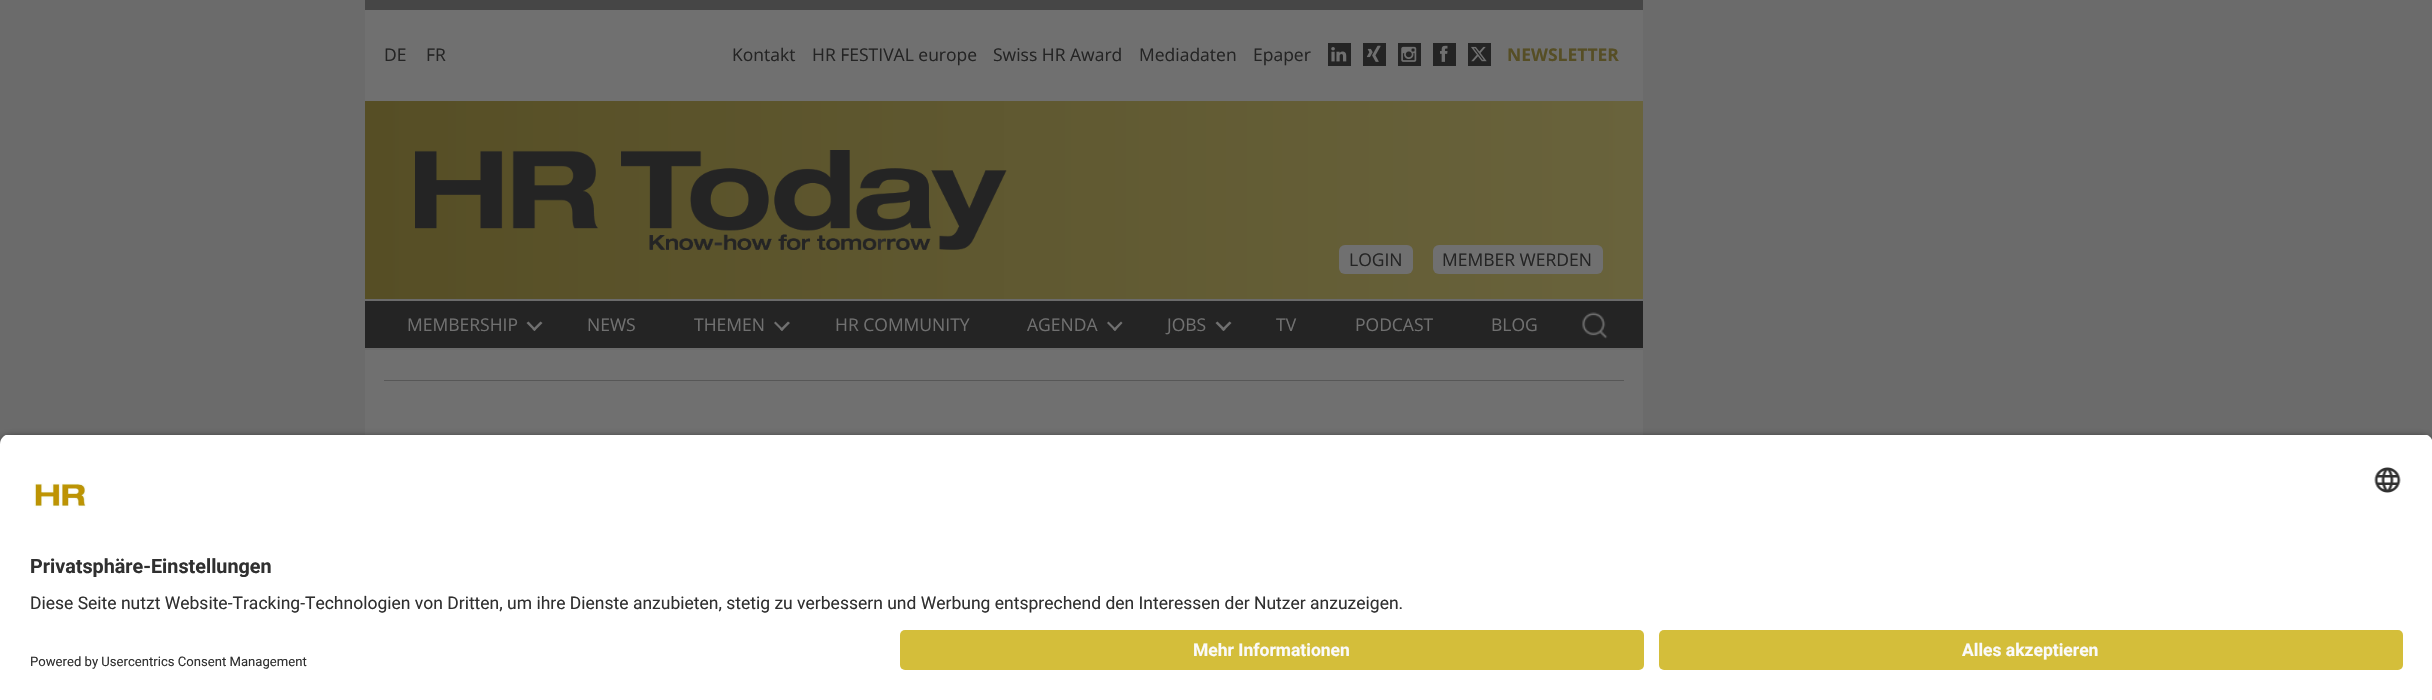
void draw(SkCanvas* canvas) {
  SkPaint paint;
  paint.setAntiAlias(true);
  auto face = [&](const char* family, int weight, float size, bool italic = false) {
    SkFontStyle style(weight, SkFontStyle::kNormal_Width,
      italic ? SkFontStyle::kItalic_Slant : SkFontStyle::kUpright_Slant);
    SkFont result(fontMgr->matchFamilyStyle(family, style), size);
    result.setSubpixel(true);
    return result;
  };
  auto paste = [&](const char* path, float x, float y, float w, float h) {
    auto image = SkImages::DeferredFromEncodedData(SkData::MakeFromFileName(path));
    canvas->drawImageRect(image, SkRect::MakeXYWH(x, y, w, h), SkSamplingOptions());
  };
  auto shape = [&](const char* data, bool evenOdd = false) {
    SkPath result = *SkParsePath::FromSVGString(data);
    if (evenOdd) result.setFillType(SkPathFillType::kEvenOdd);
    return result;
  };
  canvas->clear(0xff6b6b6b);
  {
    const struct { float x, y, w, h; SkColor color; } items[] = {
      {365, 10, 1278, 91, 0xff707070},
      {365, 0, 1278, 10, 0xff464646},
      {1328, 43, 23, 23, 0xff242424},
    };
    for (auto [x, y, w, h, color] : items) {
      paint.setColor(color);
      canvas->drawRect(SkRect::MakeXYWH(x, y, w, h), paint);
    }
  }
  paste("img/1.png", 1331, 47, 16, 15);
  canvas->drawRect(SkRect::MakeXYWH(1363, 43, 23, 23), paint);
  paste("img/2.png", 1366, 45, 15, 17);
  canvas->drawRect(SkRect::MakeXYWH(1398, 43, 23, 23), paint);
  paste("img/3.png", 1401, 46, 16, 16);
  canvas->drawRect(SkRect::MakeXYWH(1433, 43, 23, 23), paint);
  paste("img/4.png", 1440, 45, 8, 17);
  canvas->drawRect(SkRect::MakeXYWH(1468, 43, 23, 23), paint);
  paste("img/5.png", 1471, 46, 16, 16);
  {
    const SkColor colors[] = {0xff564e25, 0xff69633c};
    const float stops[] = {0, 1};
    const SkPoint ends[] = {{365, 200}, {1643, 200}};
    paint.setShader(SkGradientShader::MakeLinear(ends, colors, stops, 2, SkTileMode::kClamp));
    paint.setAlpha(255);
  }
  canvas->drawRect(SkRect::MakeXYWH(365, 101, 1278, 198), paint);
  paste("img/6.png", 415, 150, 592, 100);
  paint.setShader(nullptr);
  paint.setColor(0xff707070);
  canvas->drawRoundRect(SkRect::MakeXYWH(1339, 245, 74, 29), 6, 6, paint);
  canvas->drawRoundRect(SkRect::MakeXYWH(1433, 245, 170, 29), 6, 6, paint);
  paint.setColor(0xff242424);
  canvas->drawRect(SkRect::MakeXYWH(365, 301, 1278, 47), paint);
  paint.setColor(0xff707070);
  canvas->drawPath(shape("M540.5 321.5L542.5 323L534.5 331L532.5 329.5Z"), paint);
  canvas->drawPath(shape("M528.5 321.5L536 329.5L534.5 331L526.5 323Z"), paint);
  canvas->drawPath(shape("M788 321.5L790 323L782 331L780 329.5Z"), paint);
  canvas->drawPath(shape("M775.5 321.5L783.5 329.5L782 331L774 323Z"), paint);
  canvas->drawPath(shape("M1121 321.5L1122.5 323L1115 331L1113 329.5Z"), paint);
  canvas->drawPath(shape("M1108.5 321.5L1116.5 329.5L1115 331L1107 323Z"), paint);
  canvas->drawPath(shape("M1229.5 321.5L1231.5 323L1223.5 331L1221.5 329.5Z"), paint);
  canvas->drawPath(shape("M1217.5 321.5L1225.5 329.5L1223.5 331L1215.5 323Z"), paint);
  paste("img/7.png", 1582, 312, 26, 27);
  canvas->drawRect(SkRect::MakeXYWH(365, 350, 1278, 85), paint);
  paint.setColor(0xff575757);
  canvas->drawRect(SkRect::MakeXYWH(384, 380, 1240, 1), paint);
  paint.setColor(0xcc000000);
  paint.setMaskFilter(SkMaskFilter::MakeBlur(kNormal_SkBlurStyle, 4.5f));
  canvas->drawRoundRect(SkRect::MakeXYWH(0, 438, 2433, 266), 10, 10, paint);
  paint.setMaskFilter(nullptr);
  canvas->save();
  canvas->clipPath(shape("M10 434H2423C2428.5 434 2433 438.5 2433 444V620H0V444C0 438.5 4.5 434 10 434Z"), true);
  paint.setColor(0xffffffff);
  canvas->drawRect(SkRect::MakeXYWH(0, 435, 2432, 185), paint);
  canvas->restore();
  paste("img/8.png", 2374, 467, 27, 26);
  paste("img/9.png", 34, 483, 52, 25);
  canvas->drawRect(SkRect::MakeXYWH(0, 620, 2432, 80), paint);
  paint.setColor(0xffd4be3a);
  canvas->drawRoundRect(SkRect::MakeXYWH(900, 630, 744, 40), 5, 5, paint);
  canvas->drawRoundRect(SkRect::MakeXYWH(1659, 630, 744, 40), 5, 5, paint);
  auto f0 = face("Open Sans", 400, 17.5f);
  paint.setColor(0xff242424);
  {
    const struct { const char* s; float x, y; } items[] = {
      {"DE", 384, 61},
      {"FR", 426, 61},
      {"Kontakt", 732, 61},
      {"HR FESTIVAL europe", 812, 61},
      {"Swiss HR Award", 993, 61},
      {"Mediadaten", 1139, 61},
      {"Epaper", 1253, 61},
    };
    for (auto [s, x, y] : items) {
      canvas->drawString(s, x, y, f0, paint);
    }
  }
  auto f1 = face("Open Sans", 700, 17.5f);
  paint.setColor(0xff564e25);
  canvas->drawString("NEWSLETTER", 1507, 61, f1, paint);
  paint.setColor(0xff242424);
  canvas->drawString("LOGIN", 1349, 266, f0, paint);
  canvas->drawString("MEMBER WERDEN", 1442, 266, f0, paint);
  paint.setColor(0xff707070);
  {
    const struct { const char* s; float x, y; } items[] = {
      {"MEMBERSHIP", 407, 331},
      {"NEWS", 587, 331},
      {"THEMEN", 694, 331},
      {"HR COMMUNITY", 835, 331},
      {"AGENDA", 1027, 331},
      {"JOBS", 1167, 331},
      {"TV", 1276, 331},
      {"PODCAST", 1355, 331},
      {"BLOG", 1491, 331},
    };
    for (auto [s, x, y] : items) {
      canvas->drawString(s, x, y, f0, paint);
    }
  }
  auto f2 = face("Roboto", 700, 19.75f);
  paint.setColor(0xff303030);
  canvas->drawString("Privatsphäre-Einstellungen", 30, 573, f2, paint);
  auto f3 = face("Roboto", 400, 17.5f);
  canvas->drawString("Diese Seite nutzt Website-Tracking-Technologien von Dritten, um ihre Dienste anzubieten, stetig zu verbessern und Werbung entsprechend den Interessen der Nutzer anzuzeigen.", 30, 609, f3, paint);
  auto f4 = face("Roboto", 700, 17.5f);
  paint.setColor(0xfffafafa);
  canvas->drawString("Mehr Informationen", 1193, 656, f4, paint);
  canvas->drawString("Alles akzeptieren", 1962, 656, f4, paint);
  auto f5 = face("Roboto", 400, 13.1f);
  paint.setColor(0xff303030);
  canvas->drawString("Powered by Usercentrics Consent Management", 30, 666, f5, paint);
}
